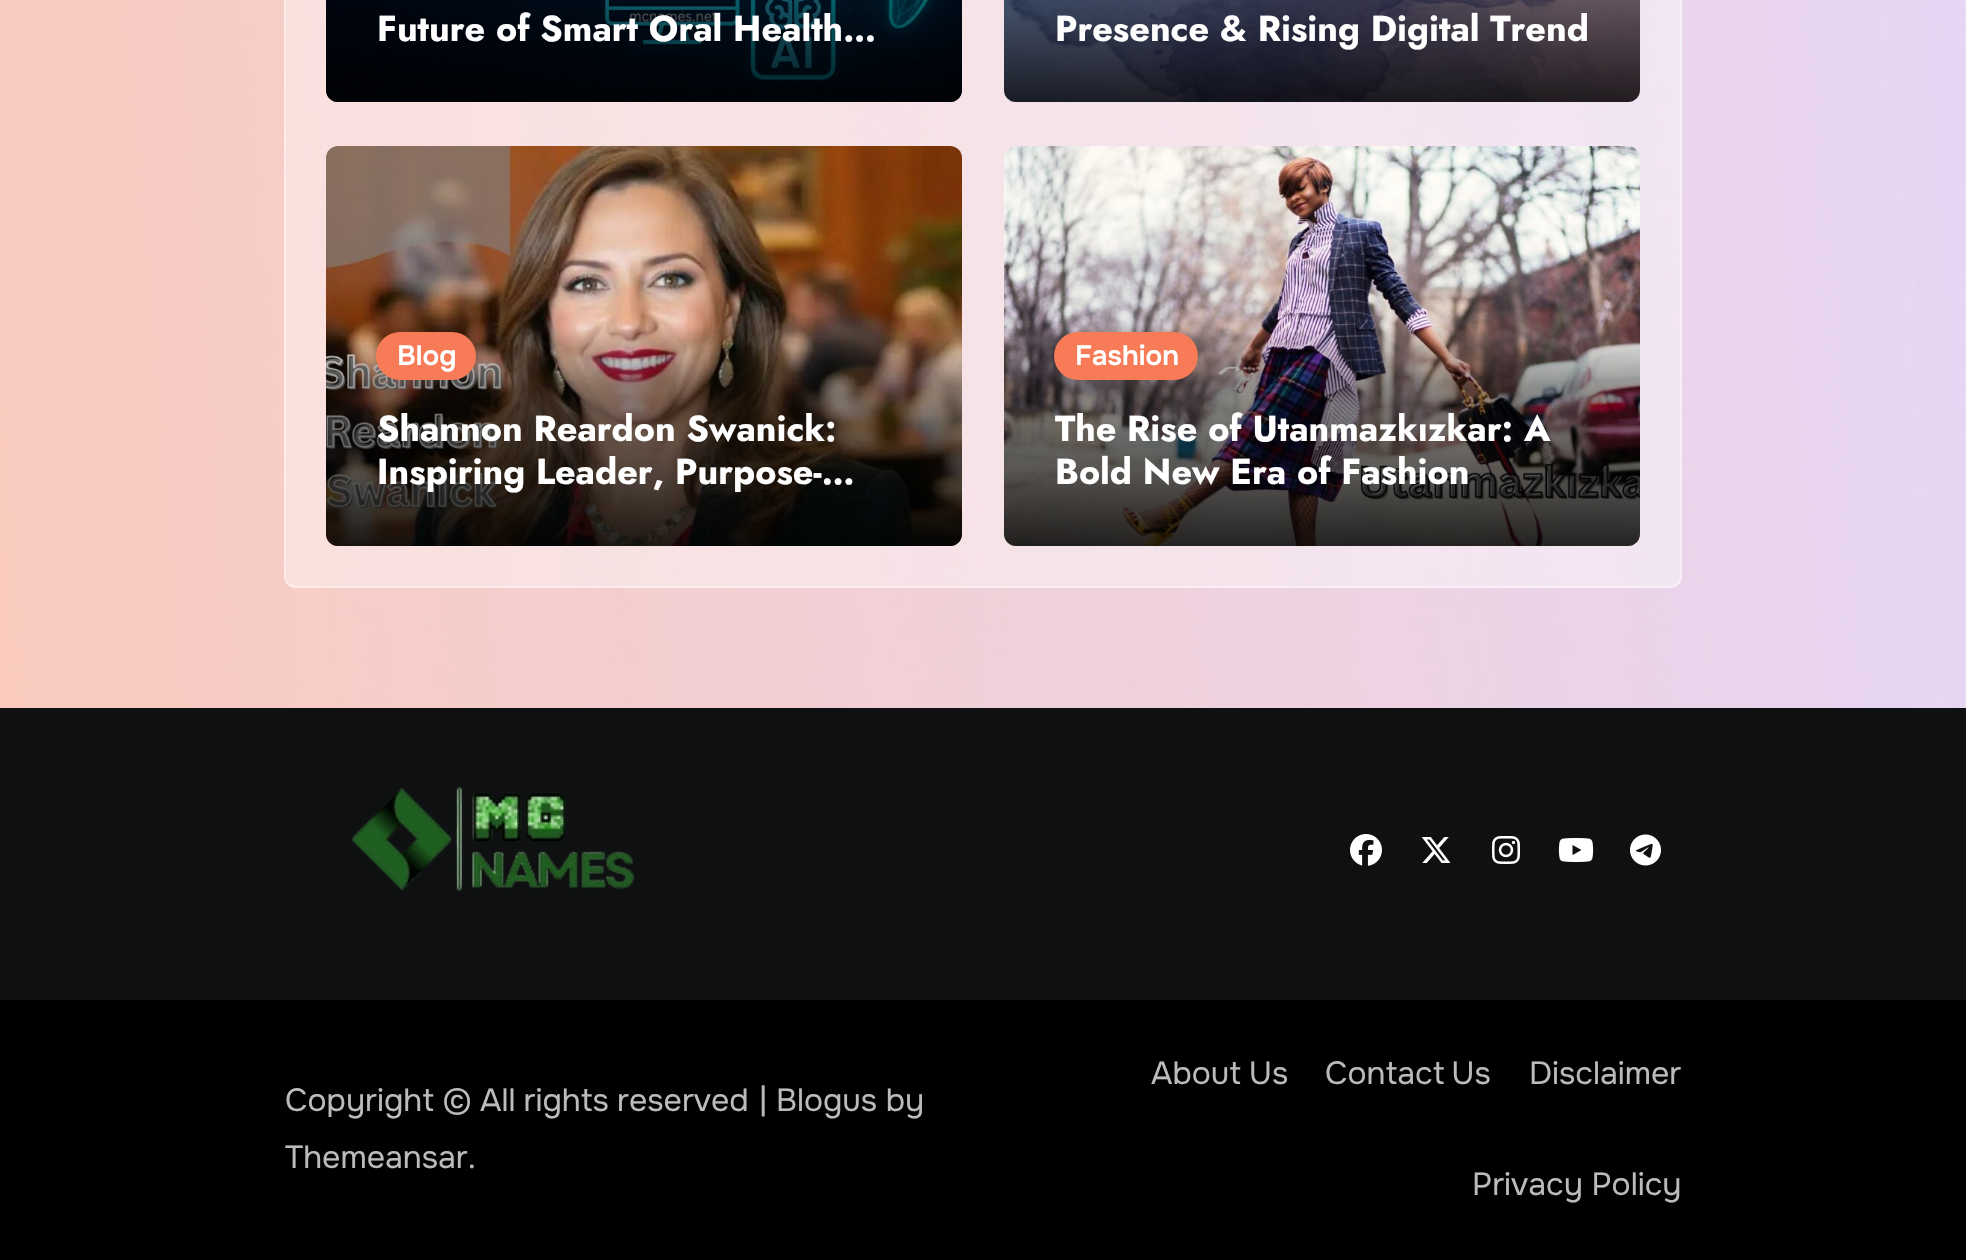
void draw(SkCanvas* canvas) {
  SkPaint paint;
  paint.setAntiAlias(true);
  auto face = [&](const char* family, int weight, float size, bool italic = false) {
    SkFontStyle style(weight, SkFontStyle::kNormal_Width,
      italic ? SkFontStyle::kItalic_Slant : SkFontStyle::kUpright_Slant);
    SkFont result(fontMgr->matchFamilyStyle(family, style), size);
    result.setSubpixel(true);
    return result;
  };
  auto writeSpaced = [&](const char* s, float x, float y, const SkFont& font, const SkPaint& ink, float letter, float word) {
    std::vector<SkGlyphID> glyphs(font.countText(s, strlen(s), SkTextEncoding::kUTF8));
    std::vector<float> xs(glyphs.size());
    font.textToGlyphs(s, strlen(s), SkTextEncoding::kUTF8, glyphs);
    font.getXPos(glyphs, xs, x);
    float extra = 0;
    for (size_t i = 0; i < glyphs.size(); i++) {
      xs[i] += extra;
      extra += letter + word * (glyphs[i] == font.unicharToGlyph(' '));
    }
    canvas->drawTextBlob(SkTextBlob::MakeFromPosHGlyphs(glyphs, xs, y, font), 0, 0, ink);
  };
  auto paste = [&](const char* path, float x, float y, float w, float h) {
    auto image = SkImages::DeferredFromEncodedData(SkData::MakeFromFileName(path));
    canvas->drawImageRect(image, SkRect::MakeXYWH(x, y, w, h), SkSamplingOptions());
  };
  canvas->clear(0xffffffff);
  paste("img/1.png", 0, 0, 1966, 708);
  paint.setColor(0x66ffffff);
  canvas->drawRoundRect(SkRect::MakeXYWH(284, -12, 1398, 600), 12, 12, paint);
  paint.setStroke(true);
  paint.setStrokeWidth(2);
  canvas->drawRoundRect(SkRect::MakeXYWH(285, -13, 1396, 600), 11, 11, paint);
  paste("img/2.png", 326, 0, 636, 102);
  paint.setStroke(false);
  {
    const SkColor colors[] = {0x00ffffff, 0x00000000, 0x66000000, 0xd9000000};
    const float stops[] = {0, 0.45f, 0.6f, 1};
    const SkPoint ends[] = {{644, -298}, {644, 102}};
    paint.setShader(SkGradientShader::MakeLinear(ends, colors, stops, 4, SkTileMode::kClamp));
    paint.setAlpha(255);
  }
  canvas->drawRoundRect(SkRect::MakeXYWH(326, -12, 636, 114), 12, 12, paint);
  paste("img/3.png", 1004, 0, 636, 102);
  {
    const SkColor colors[] = {0x00ffffff, 0x00000000, 0x66000000, 0xd9000000};
    const float stops[] = {0, 0.45f, 0.6f, 1};
    const SkPoint ends[] = {{1322, -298}, {1322, 102}};
    paint.setShader(SkGradientShader::MakeLinear(ends, colors, stops, 4, SkTileMode::kClamp));
    paint.setAlpha(255);
  }
  canvas->drawRoundRect(SkRect::MakeXYWH(1004, -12, 636, 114), 12, 12, paint);
  paste("img/4.png", 326, 146, 636, 400);
  {
    const SkColor colors[] = {0x00ffffff, 0x00000000, 0x66000000, 0xd9000000};
    const float stops[] = {0, 0.45f, 0.6f, 1};
    const SkPoint ends[] = {{644, 146}, {644, 546}};
    paint.setShader(SkGradientShader::MakeLinear(ends, colors, stops, 4, SkTileMode::kClamp));
    paint.setAlpha(255);
  }
  canvas->drawRoundRect(SkRect::MakeXYWH(326, 146, 636, 400), 12, 12, paint);
  paint.setShader(nullptr);
  paint.setColor(0xfff67b56);
  canvas->drawRoundRect(SkRect::MakeXYWH(376, 332, 100, 48), 24, 24, paint);
  paste("img/5.png", 1004, 146, 636, 400);
  {
    const SkColor colors[] = {0x00ffffff, 0x00000000, 0x66000000, 0xd9000000};
    const float stops[] = {0, 0.45f, 0.6f, 1};
    const SkPoint ends[] = {{1322, 146}, {1322, 546}};
    paint.setShader(SkGradientShader::MakeLinear(ends, colors, stops, 4, SkTileMode::kClamp));
    paint.setAlpha(255);
  }
  canvas->drawRoundRect(SkRect::MakeXYWH(1004, 146, 636, 400), 12, 12, paint);
  paint.setShader(nullptr);
  paint.setColor(0xfff67b56);
  canvas->drawRoundRect(SkRect::MakeXYWH(1054, 332, 144, 48), 24, 24, paint);
  paint.setColor(0xff0f1012);
  canvas->drawRect(SkRect::MakeXYWH(0, 708, 1966, 292), paint);
  paste("img/6.png", 352, 787, 283, 104);
  paste("img/7.png", 1350, 834, 32, 32);
  paste("img/8.png", 1421, 837, 30, 26);
  paste("img/9.png", 1492, 836, 28, 28);
  paste("img/10.png", 1558, 838, 36, 24);
  paste("img/11.png", 1630, 834, 31, 32);
  paint.setColor(0xff000000);
  canvas->drawRect(SkRect::MakeXYWH(0, 1000, 1966, 260), paint);
  auto f0 = face("Jost", 700, 36);
  paint.setColor(0xffffffff);
  canvas->drawString("Future of Smart Oral Health…", 377, 41, f0, paint);
  canvas->drawString("Presence & Rising Digital Trend", 1055, 41, f0, paint);
  auto f1 = face("Onest", 600, 28);
  canvas->drawString("Blog", 397, 365, f1, paint);
  canvas->drawString("Shannon Reardon Swanick:", 377, 441, f0, paint);
  canvas->drawString("Inspiring Leader, Purpose-…", 377, 484, f0, paint);
  canvas->drawString("Fashion", 1075, 365, f1, paint);
  canvas->drawString("The Rise of Utanmazkızkar: A", 1055, 441, f0, paint);
  canvas->drawString("Bold New Era of Fashion", 1055, 484, f0, paint);
  auto f2 = face("Onest", 400, 32);
  paint.setColor(0xffbbbbbb);
  writeSpaced("Copyright © All rights reserved", 285, 1111, f2, paint, 0, -0.5f);
  canvas->drawString("| Blogus by", 759, 1111, f2, paint);
  canvas->drawString("Themeansar.", 285, 1168, f2, paint);
  writeSpaced("About Us", 1151, 1084, f2, paint, 0, -1);
  writeSpaced("Contact Us", 1325, 1084, f2, paint, 0, -2);
  canvas->drawString("Disclaimer", 1529, 1084, f2, paint);
  canvas->drawString("Privacy Policy", 1472, 1195, f2, paint);
}
